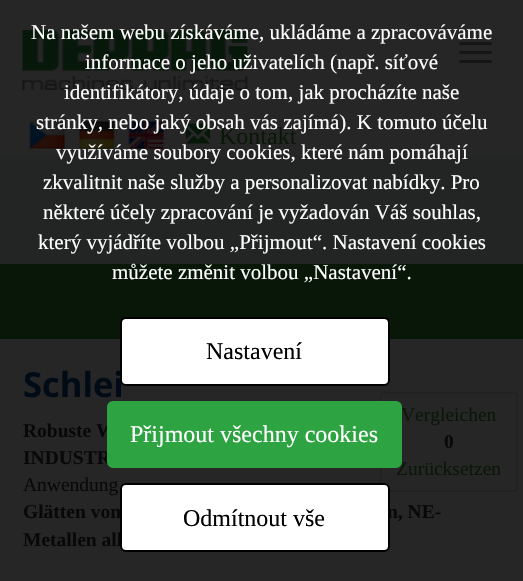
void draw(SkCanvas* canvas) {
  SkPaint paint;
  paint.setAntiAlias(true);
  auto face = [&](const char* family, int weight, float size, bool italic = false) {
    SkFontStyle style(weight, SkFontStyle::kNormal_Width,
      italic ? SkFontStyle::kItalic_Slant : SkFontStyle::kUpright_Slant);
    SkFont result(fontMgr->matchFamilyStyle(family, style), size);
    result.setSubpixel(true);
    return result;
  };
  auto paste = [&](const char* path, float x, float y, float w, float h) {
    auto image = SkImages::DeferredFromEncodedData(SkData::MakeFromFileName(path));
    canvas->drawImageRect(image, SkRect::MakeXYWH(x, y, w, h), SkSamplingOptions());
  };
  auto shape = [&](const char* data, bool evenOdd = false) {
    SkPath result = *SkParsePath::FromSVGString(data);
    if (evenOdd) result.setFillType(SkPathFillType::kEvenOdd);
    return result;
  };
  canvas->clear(0xff232424);
  paint.setColor(0xff262626);
  canvas->drawRect(SkRect::MakeXYWH(0, 0, 523, 156), paint);
  paste("img/1.png", 22, 30, 226, 60);
  paint.setColor(0xff151515);
  canvas->drawRoundRect(SkRect::MakeXYWH(459, 42, 33, 3), 1.5f, 1.5f, paint);
  canvas->drawRoundRect(SkRect::MakeXYWH(459, 51, 33, 3), 1.5f, 1.5f, paint);
  canvas->drawRoundRect(SkRect::MakeXYWH(459, 60, 33, 3), 1.5f, 1.5f, paint);
  paste("img/2.png", 29, 121, 36, 28);
  paste("img/3.png", 79, 121, 36, 28);
  paste("img/4.png", 128, 121, 36, 28);
  paste("img/5.png", 186, 123, 24, 21);
  paint.setColor(0xff081707);
  canvas->drawRect(SkRect::MakeXYWH(0, 264, 523, 75), paint);
  paint.setColor(0xff262626);
  canvas->drawRect(SkRect::MakeXYWH(0, 339, 523, 242), paint);
  paint.setColor(0xff232323);
  canvas->drawPath(shape("M382 394H514C515 394 516 395 516 396C516 395 516 393 515 393H382C381 393 381 395 381 396Z"), paint);
  paint.setStroke(true);
  paint.setStrokeWidth(2);
  paint.setColor(0xff212323);
  canvas->drawRoundRect(SkRect::MakeXYWH(381, 393, 136, 98), 2, 2, paint);
  auto f0 = face("Liberation Serif", 400, 21);
  paint.setStroke(false);
  paint.setColor(0xffffffff);
  {
    const struct { const char* s; float x, y; } items[] = {
      {"Na našem webu získáváme, ukládáme a zpracováváme", 31, 39},
      {"informace o jeho uživatelích (např. síťové", 85, 69},
      {"identifikátory, údaje o tom, jak procházíte naše", 64, 99},
      {"stránky, nebo jaký obsah vás zajímá). K tomuto účelu", 36, 129},
      {"využíváme soubory cookies, které nám pomáhají", 56, 159},
      {"zkvalitnit naše služby a personalizovat nabídky. Pro", 43, 189},
      {"některé účely zpracování je vyžadován Váš souhlas,", 43, 219},
      {"který vyjádříte volbou „Přijmout“. Nastavení cookies", 38, 249},
      {"můžete změnit volbou „Nastavení“.", 112, 279},
    };
    for (auto [s, x, y] : items) {
      canvas->drawString(s, x, y, f0, paint);
    }
  }
  auto f1 = face("Liberation Serif", 400, 24);
  paint.setColor(0xff081707);
  canvas->drawString("Kontakt", 219, 144, f1, paint);
  auto f2 = face("Open Sans", 700, 34.5f);
  paint.setColor(0xff000b16);
  canvas->drawString("Schlei", 23, 397, f2, paint);
  paint.setColor(0xffffffff);
  canvas->drawRoundRect(SkRect::MakeXYWH(121, 318, 268, 67), 5, 5, paint);
  paint.setStroke(true);
  paint.setColor(0xff000000);
  canvas->drawRoundRect(SkRect::MakeXYWH(121, 318, 268, 67), 5, 5, paint);
  paint.setStroke(false);
  canvas->drawString("Nastavení", 206, 359, f1, paint);
  auto f3 = face("Liberation Serif", 700, 19.5f);
  paint.setColor(0xff080808);
  canvas->drawString("Robuste W", 23, 437, f3, paint);
  canvas->drawString("INDUSTR", 23, 464, f3, paint);
  auto f4 = face("Liberation Serif", 400, 19.5f);
  canvas->drawString("Anwendung", 23, 491, f4, paint);
  {
    const struct { const char* s; float x, y; } items[] = {
      {"Glätten von", 23, 518},
      {"n, NE-", 387, 518},
      {"Metallen all", 23, 546},
    };
    for (auto [s, x, y] : items) {
      canvas->drawString(s, x, y, f3, paint);
    }
  }
  paint.setColor(0xffffffff);
  canvas->drawRoundRect(SkRect::MakeXYWH(121, 484, 268, 67), 5, 5, paint);
  paint.setStroke(true);
  paint.setColor(0xff000000);
  canvas->drawRoundRect(SkRect::MakeXYWH(121, 484, 268, 67), 5, 5, paint);
  paint.setStroke(false);
  canvas->drawString("Odmítnout vše", 183, 526, f1, paint);
  paint.setColor(0xff081707);
  canvas->drawString("Vergleichen", 401, 421, f4, paint);
  paint.setColor(0xff080808);
  canvas->drawString("0", 444, 448, f3, paint);
  paint.setColor(0xff081707);
  canvas->drawString("Zurücksetzen", 396, 475, f4, paint);
  paint.setColor(0xff2ea342);
  canvas->drawRoundRect(SkRect::MakeXYWH(108, 402, 293, 65), 5, 5, paint);
  paint.setStroke(true);
  canvas->drawRoundRect(SkRect::MakeXYWH(108, 402, 293, 65), 5, 5, paint);
  paint.setStroke(false);
  paint.setColor(0xffffffff);
  canvas->drawString("Přijmout všechny cookies", 130, 442, f1, paint);
}
